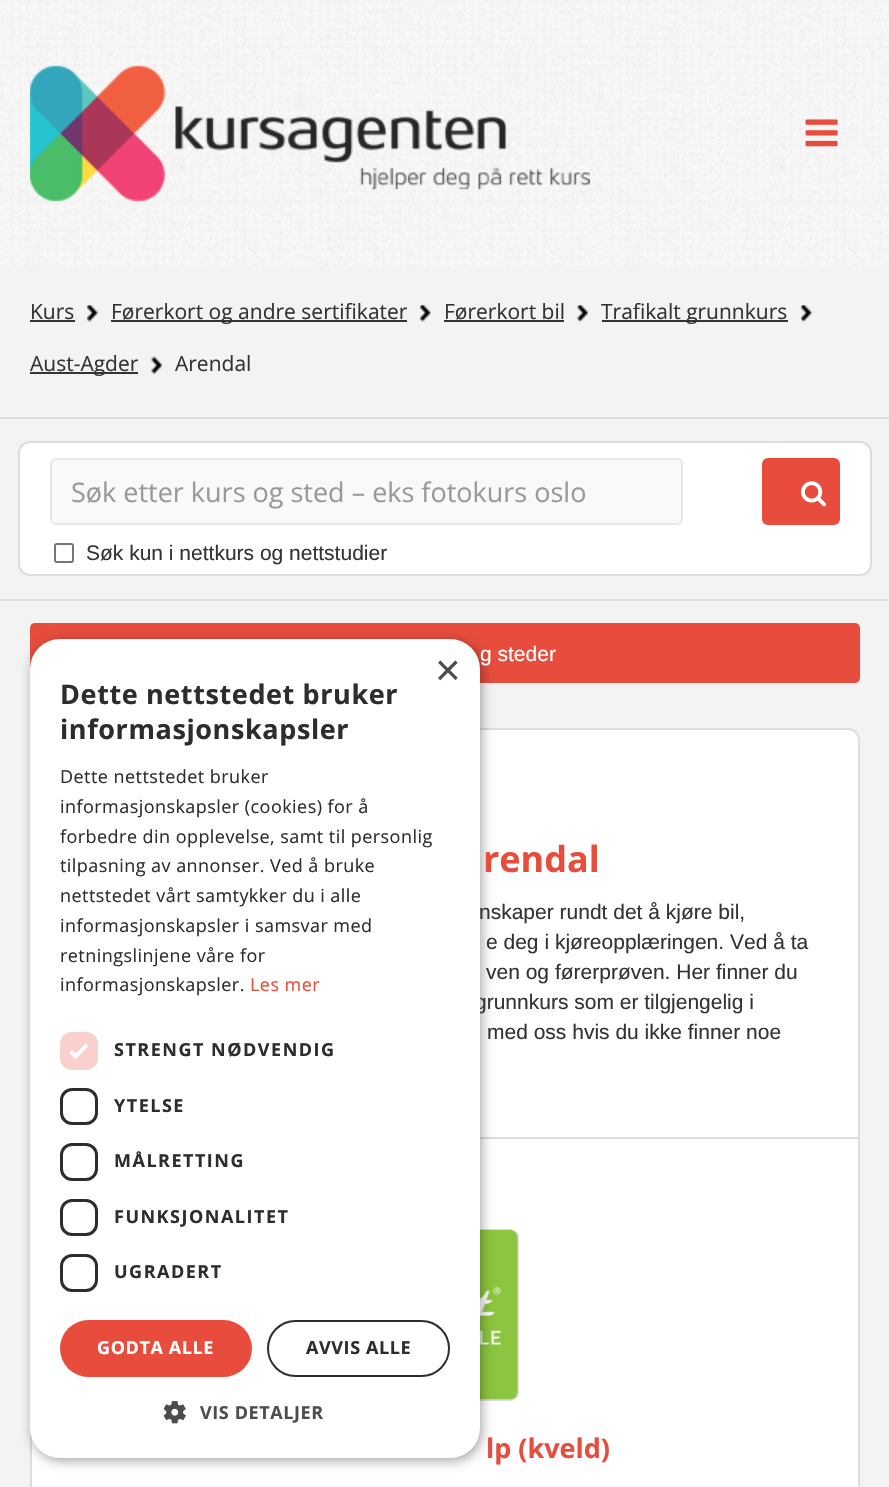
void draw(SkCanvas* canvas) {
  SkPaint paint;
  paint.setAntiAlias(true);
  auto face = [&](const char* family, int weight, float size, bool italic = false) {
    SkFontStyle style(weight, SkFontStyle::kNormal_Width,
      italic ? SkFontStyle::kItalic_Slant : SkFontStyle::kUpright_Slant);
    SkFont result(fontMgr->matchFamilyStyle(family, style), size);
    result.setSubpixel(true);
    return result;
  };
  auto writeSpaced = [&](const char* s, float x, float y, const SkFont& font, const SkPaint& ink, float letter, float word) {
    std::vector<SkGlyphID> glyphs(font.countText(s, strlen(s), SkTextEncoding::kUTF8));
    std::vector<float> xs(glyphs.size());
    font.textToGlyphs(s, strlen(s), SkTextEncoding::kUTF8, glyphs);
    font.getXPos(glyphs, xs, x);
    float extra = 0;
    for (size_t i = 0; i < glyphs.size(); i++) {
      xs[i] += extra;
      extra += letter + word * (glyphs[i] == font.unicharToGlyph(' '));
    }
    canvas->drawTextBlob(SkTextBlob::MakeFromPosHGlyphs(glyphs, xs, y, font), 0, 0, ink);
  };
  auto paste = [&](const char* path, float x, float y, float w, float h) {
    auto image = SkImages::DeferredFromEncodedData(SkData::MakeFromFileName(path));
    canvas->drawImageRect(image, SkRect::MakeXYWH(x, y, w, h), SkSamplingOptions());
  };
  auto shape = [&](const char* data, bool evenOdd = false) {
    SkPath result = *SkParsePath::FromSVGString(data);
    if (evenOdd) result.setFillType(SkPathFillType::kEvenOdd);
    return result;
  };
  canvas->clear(0xfff3f3f3);
  paste("img/1.png", 0, 0, 889, 267);
  paste("img/2.png", 30, 65, 560, 137);
  paste("img/3.png", 805, 119, 33, 28);
  paint.setColor(0xff333333);
  canvas->drawRect(SkRect::MakeXYWH(30, 320, 45, 2), paint);
  paste("img/4.png", 87, 305, 11, 17);
  canvas->drawRect(SkRect::MakeXYWH(111, 320, 296, 2), paint);
  paste("img/4.png", 420, 305, 11, 17);
  canvas->drawRect(SkRect::MakeXYWH(444, 320, 120, 2), paint);
  paste("img/5.png", 577, 305, 11, 17);
  canvas->drawRect(SkRect::MakeXYWH(602, 320, 186, 2), paint);
  paste("img/4.png", 801, 305, 11, 17);
  canvas->drawRect(SkRect::MakeXYWH(30, 372, 108, 2), paint);
  paste("img/6.png", 151, 356, 11, 18);
  paint.setColor(0xffdddddd);
  canvas->drawRect(SkRect::MakeXYWH(0, 417, 889, 2), paint);
  canvas->drawRect(SkRect::MakeXYWH(0, 599, 889, 2), paint);
  paint.setColor(0xffffffff);
  canvas->drawRoundRect(SkRect::MakeXYWH(19, 442, 852, 133), 11, 11, paint);
  paint.setStroke(true);
  paint.setStrokeWidth(2);
  paint.setColor(0xffdddddd);
  canvas->drawRoundRect(SkRect::MakeXYWH(19, 442, 852, 133), 11, 11, paint);
  paint.setStroke(false);
  paint.setColor(0xfff9f9f9);
  canvas->drawRoundRect(SkRect::MakeXYWH(51, 459, 631, 65), 5, 5, paint);
  paint.setStroke(true);
  paint.setColor(0xffe8e8e8);
  canvas->drawRoundRect(SkRect::MakeXYWH(51, 459, 631, 65), 5, 5, paint);
  paint.setStroke(false);
  paint.setColor(0xffe74c3c);
  canvas->drawRoundRect(SkRect::MakeXYWH(762, 458, 78, 67), 6, 6, paint);
  paste("img/7.png", 801, 481, 26, 26);
  paint.setStroke(true);
  paint.setColor(0xff767676);
  canvas->drawRoundRect(SkRect::MakeXYWH(55, 544, 18, 18), 2, 2, paint);
  paint.setStroke(false);
  paint.setColor(0xffe74c3c);
  canvas->drawRoundRect(SkRect::MakeXYWH(30, 623, 830, 60), 5, 5, paint);
  paint.setColor(0xffffffff);
  canvas->drawRoundRect(SkRect::MakeXYWH(31, 729, 828, 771), 11, 11, paint);
  paint.setStroke(true);
  paint.setColor(0xffdddddd);
  canvas->drawRoundRect(SkRect::MakeXYWH(31, 729, 828, 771), 11, 11, paint);
  paint.setStroke(false);
  canvas->drawRect(SkRect::MakeXYWH(480, 1137, 378, 2), paint);
  paint.setStroke(true);
  canvas->drawRoundRect(SkRect::MakeXYWH(342, 1230, 176, 170), 8, 8, paint);
  paste("img/8.png", 480, 1230, 38, 170);
  paint.setStroke(false);
  paint.setColor(0x59000000);
  paint.setMaskFilter(SkMaskFilter::MakeBlur(kNormal_SkBlurStyle, 6));
  canvas->drawRoundRect(SkRect::MakeXYWH(32, 642, 450, 819), 30, 30, paint);
  paint.setMaskFilter(nullptr);
  auto f0 = face("Open Sans", 400, 21);
  paint.setColor(0xff333333);
  {
    const struct { const char* s; float x, y; } items[] = {
      {"Kurs", 30, 319},
      {"Førerkort og andre sertifikater", 111, 319},
      {"Førerkort bil", 444, 319},
      {"Trafikalt grunnkurs", 601, 319},
      {"Aust-Agder", 30, 371},
      {"Arendal", 175, 371},
    };
    for (auto [s, x, y] : items) {
      canvas->drawString(s, x, y, f0, paint);
    }
  }
  auto f1 = face("Open Sans", 400, 27);
  paint.setColor(0xff999999);
  canvas->drawString("Søk etter kurs og sted – eks fotokurs oslo", 71, 502, f1, paint);
  auto f2 = face("Liberation Sans", 400, 21);
  paint.setColor(0xff333333);
  canvas->drawString("Søk kun i nettkurs og nettstudier", 86, 560, f2, paint);
  paint.setColor(0xffffffff);
  canvas->drawString("g steder", 480, 661, f2, paint);
  auto f3 = face("Open Sans", 700, 36);
  paint.setColor(0xffe74c3c);
  canvas->drawString("rendal", 483, 872, f3, paint);
  paint.setColor(0xff333333);
  {
    const struct { const char* s; float x, y; } items[] = {
      {"nskaper rundt det å kjøre bil,", 479, 919},
      {"e deg i kjøreopplæringen. Ved å ta", 486, 949},
      {"ven og førerprøven. Her finner du", 486, 979},
      {"grunnkurs som er tilgjengelig i", 475, 1009},
      {"med oss hvis du ikke finner noe", 487, 1039},
    };
    for (auto [s, x, y] : items) {
      canvas->drawString(s, x, y, f2, paint);
    }
  }
  auto f4 = face("Open Sans", 700, 27);
  paint.setColor(0xffe74c3c);
  canvas->drawString("lp (kveld)", 486, 1458, f4, paint);
  paint.setColor(0xffffffff);
  canvas->drawRoundRect(SkRect::MakeXYWH(30, 639, 450, 819), 30, 30, paint);
  auto f5 = face("Liberation Sans", 400, 44);
  paint.setColor(0xff4d4d4d);
  canvas->drawString("×", 435, 685, f5, paint);
  paint.setColor(0xff2d2d2d);
  writeSpaced("Dette nettstedet bruker", 60, 704, f4, paint, 0.6f, 0);
  writeSpaced("informasjonskapsler", 60, 739, f4, paint, 0.6f, 0);
  auto f6 = face("Open Sans", 400, 18);
  {
    const struct { const char* s; float x, y; } items[] = {
      {"Dette nettstedet bruker", 60, 783},
      {"informasjonskapsler (cookies) for å", 60, 813},
      {"forbedre din opplevelse, samt til personlig", 60, 843},
      {"tilpasning av annonser. Ved å bruke", 60, 872},
      {"nettstedet vårt samtykker du i alle", 60, 902},
      {"informasjonskapsler i samsvar med", 60, 932},
      {"retningslinjene våre for", 60, 962},
      {"informasjonskapsler.", 60, 991},
    };
    for (auto [s, x, y] : items) {
      writeSpaced(s, x, y, f6, paint, 0.45f, 0);
    }
  }
  paint.setColor(0xffe74c3c);
  writeSpaced("Les mer", 250, 991, f6, paint, 0.45f, 0);
  paint.setColor(0xfff9d0cc);
  canvas->drawRoundRect(SkRect::MakeXYWH(60, 1032, 38, 38), 12, 12, paint);
  paint.setStroke(true);
  paint.setStrokeWidth(3.9f);
  paint.setColor(0xffffffff);
  canvas->drawPath(shape("M70.5 1051.5L75.5 1056.5L87 1045"), paint);
  auto f7 = face("Open Sans", 700, 18);
  paint.setStroke(false);
  paint.setColor(0xff2d2d2d);
  writeSpaced("STRENGT NØDVENDIG", 114, 1056, f7, paint, 1.5f, 0);
  paint.setStroke(true);
  paint.setStrokeWidth(3);
  canvas->drawRoundRect(SkRect::MakeXYWH(61.5f, 1089.5f, 35, 34), 10.5f, 10.5f, paint);
  paint.setStroke(false);
  writeSpaced("YTELSE", 114, 1112, f7, paint, 1.5f, 0);
  paint.setStroke(true);
  canvas->drawRoundRect(SkRect::MakeXYWH(61.5f, 1144.5f, 35, 35), 10.5f, 10.5f, paint);
  paint.setStroke(false);
  writeSpaced("MÅLRETTING", 114, 1167, f7, paint, 1.5f, 0);
  paint.setStroke(true);
  canvas->drawRoundRect(SkRect::MakeXYWH(61.5f, 1200.5f, 35, 34), 10.5f, 10.5f, paint);
  paint.setStroke(false);
  writeSpaced("FUNKSJONALITET", 114, 1223, f7, paint, 1.5f, 0);
  paint.setStroke(true);
  canvas->drawRoundRect(SkRect::MakeXYWH(61.5f, 1255.5f, 35, 35), 10.5f, 10.5f, paint);
  paint.setStroke(false);
  writeSpaced("UGRADERT", 114, 1278, f7, paint, 1.5f, 0);
  paint.setColor(0xffe74c3c);
  canvas->drawRoundRect(SkRect::MakeXYWH(60, 1320, 192, 57), 28.5f, 28.5f, paint);
  paint.setColor(0xffffffff);
  writeSpaced("GODTA ALLE", 97, 1354, f7, paint, 0.6f, 0);
  paint.setStroke(true);
  paint.setStrokeWidth(2);
  paint.setColor(0xff2d2d2d);
  canvas->drawRoundRect(SkRect::MakeXYWH(268, 1321, 181, 55), 27.5f, 27.5f, paint);
  paint.setStroke(false);
  writeSpaced("AVVIS ALLE", 306, 1354, f7, paint, 0.6f, 0);
  paste("img/9.png", 164, 1401, 22, 23);
  paint.setColor(0xff4d4d4d);
  writeSpaced("VIS DETALJER", 200, 1419, f7, paint, 0.6f, 0);
}
